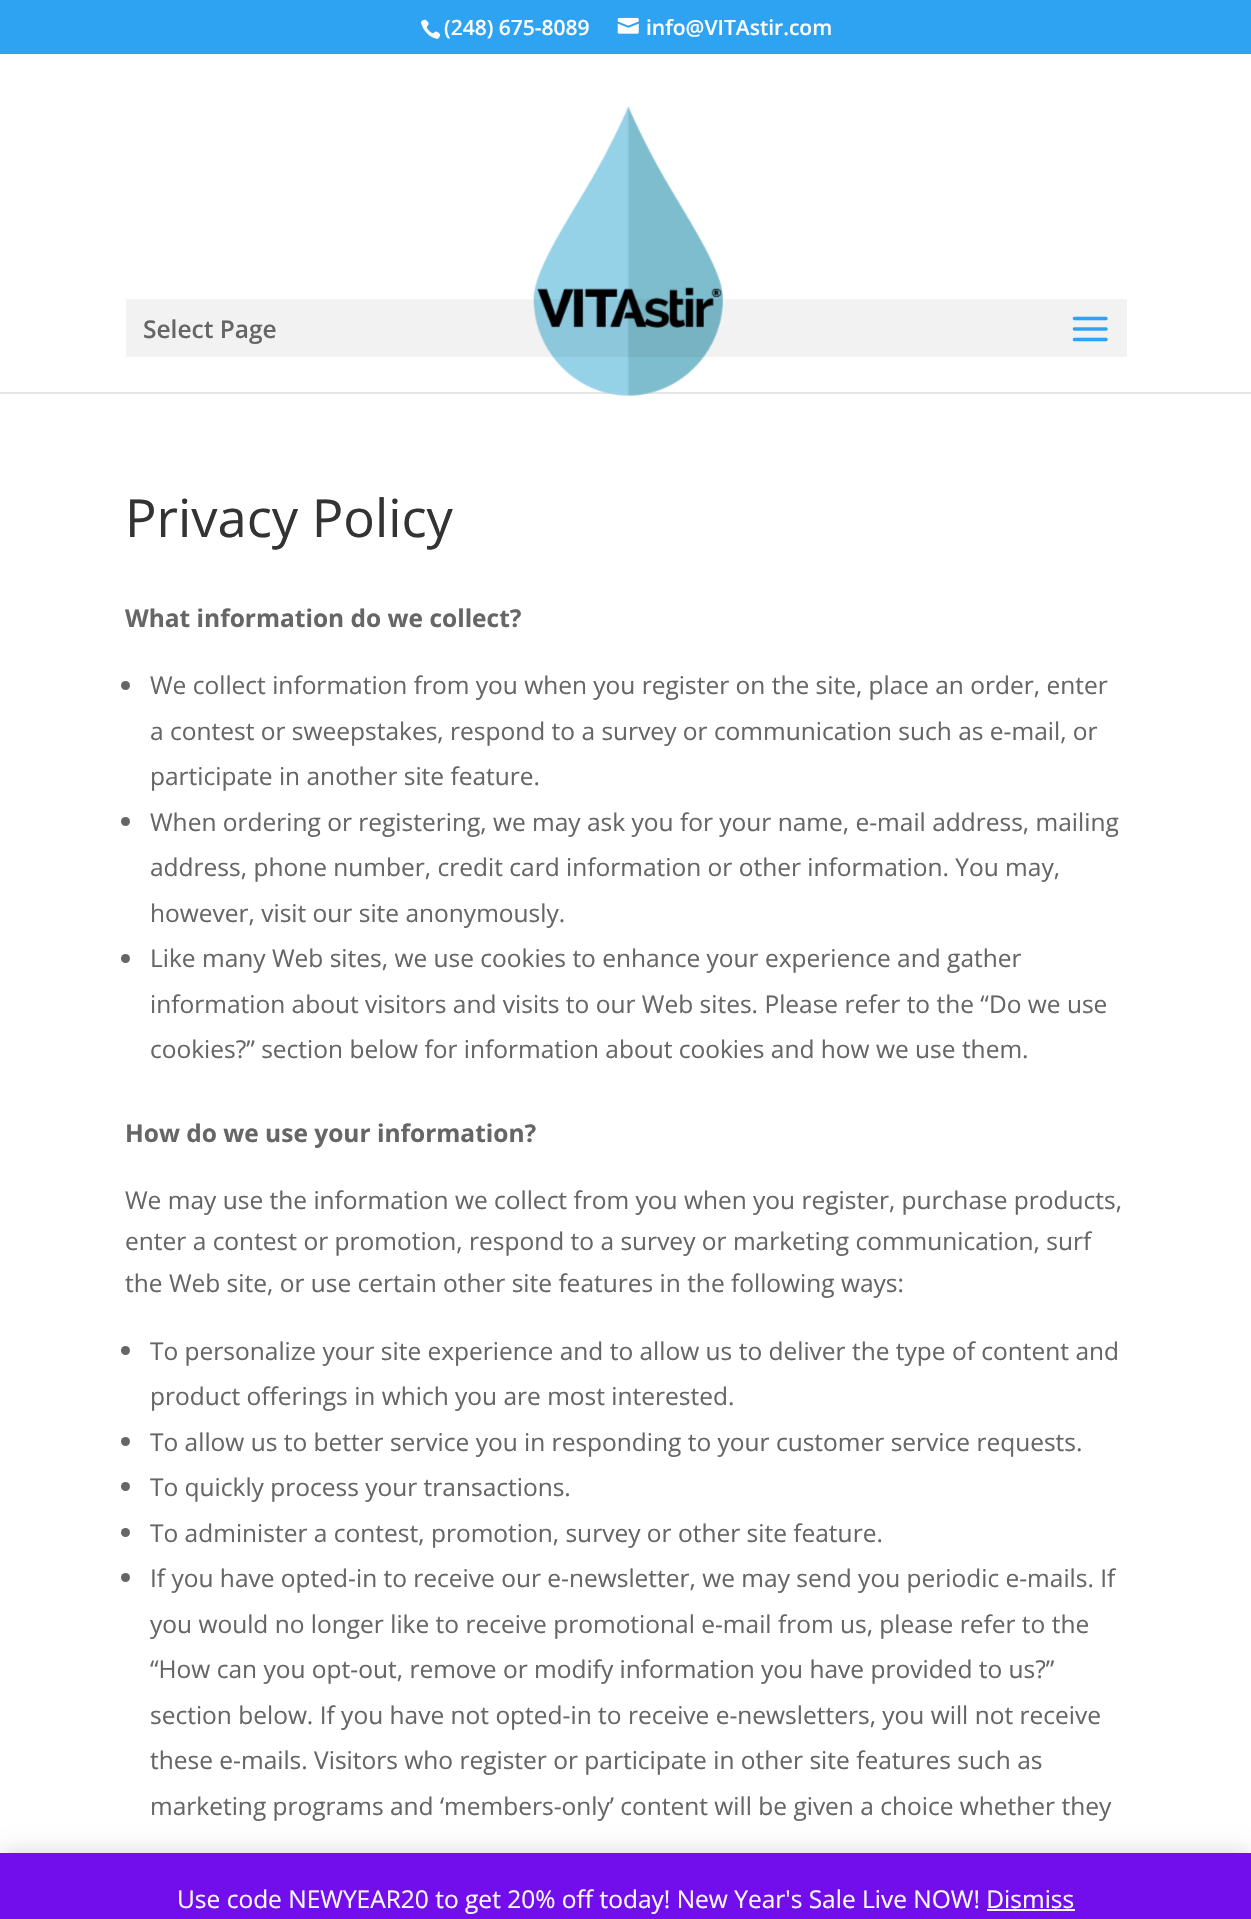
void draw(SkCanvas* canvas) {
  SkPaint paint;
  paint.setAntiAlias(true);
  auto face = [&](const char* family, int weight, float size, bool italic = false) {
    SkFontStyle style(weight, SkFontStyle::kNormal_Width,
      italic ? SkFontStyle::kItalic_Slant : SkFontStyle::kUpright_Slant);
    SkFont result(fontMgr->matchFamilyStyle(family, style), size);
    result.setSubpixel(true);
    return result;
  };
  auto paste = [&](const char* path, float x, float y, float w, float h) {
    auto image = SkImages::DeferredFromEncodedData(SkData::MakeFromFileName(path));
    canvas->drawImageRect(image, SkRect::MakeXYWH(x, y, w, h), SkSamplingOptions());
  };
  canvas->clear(0xffffffff);
  paint.setColor(0xff2ea3f2);
  canvas->drawRect(SkRect::MakeXYWH(0, 0, 1251, 54), paint);
  paste("img/1.png", 420, 19, 21, 20);
  paste("img/2.png", 617, 17, 22, 17);
  paint.setColor(0xffe6e6e6);
  canvas->drawRect(SkRect::MakeXYWH(0, 392, 1251, 2), paint);
  paste("img/4.png", 533, 106, 190, 290);
  paint.setColor(0x0d000000);
  canvas->drawRect(SkRect::MakeXYWH(126, 299, 1001, 58), paint);
  paste("img/3.png", 1072, 316, 36, 26);
  paint.setColor(0xff666666);
  canvas->drawCircle(125.5f, 685.5f, 4.5f, paint);
  canvas->drawCircle(125.5f, 821.5f, 4.5f, paint);
  canvas->drawCircle(125.5f, 958.5f, 4.5f, paint);
  canvas->drawCircle(125.5f, 1350.5f, 4.5f, paint);
  canvas->drawCircle(125.5f, 1441.5f, 4.5f, paint);
  canvas->drawCircle(125.5f, 1486.5f, 4.5f, paint);
  canvas->drawCircle(125.5f, 1532.5f, 4.5f, paint);
  canvas->drawCircle(125.5f, 1577.5f, 4.5f, paint);
  paint.setColor(0x33000000);
  paint.setMaskFilter(SkMaskFilter::MakeBlur(kNormal_SkBlurStyle, 12));
  canvas->drawRect(SkRect::MakeXYWH(0, 1855, 1251, 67), paint);
  paint.setMaskFilter(nullptr);
  paint.setColor(0xff720eec);
  canvas->drawRect(SkRect::MakeXYWH(0, 1853, 1251, 66), paint);
  paint.setColor(0xfffcfbfe);
  canvas->drawRect(SkRect::MakeXYWH(987, 1909, 88, 2), paint);
  auto f0 = face("Open Sans", 600, 21);
  canvas->drawString("(248) 675-8089", 444, 35, f0, paint);
  canvas->drawString("info@VITAstir.com", 646, 35, f0, paint);
  auto f1 = face("Open Sans", 600, 24.5f);
  paint.setColor(0xff666666);
  canvas->drawString("Select Page", 143, 338, f1, paint);
  auto f2 = face("Open Sans", 400, 52.5f);
  paint.setColor(0xff333333);
  canvas->drawString("Privacy Policy", 125, 537, f2, paint);
  auto f3 = face("Open Sans", 700, 24.5f);
  paint.setColor(0xff666666);
  canvas->drawString("What information do we collect?", 125, 627, f3, paint);
  auto f4 = face("Open Sans", 400, 24.5f);
  {
    const struct { const char* s; float x, y; } items[] = {
      {"We collect information from you when you register on the site, place an order, enter", 150, 694},
      {"a contest or sweepstakes, respond to a survey or communication such as e-mail, or", 150, 740},
      {"participate in another site feature.", 150, 785},
      {"When ordering or registering, we may ask you for your name, e-mail address, mailing", 150, 831},
      {"address, phone number, credit card information or other information. You may,", 150, 876},
      {"however, visit our site anonymously.", 150, 922},
      {"Like many Web sites, we use cookies to enhance your experience and gather", 150, 967},
      {"information about visitors and visits to our Web sites. Please refer to the “Do we use", 150, 1013},
      {"cookies?” section below for information about cookies and how we use them.", 150, 1058},
    };
    for (auto [s, x, y] : items) {
      canvas->drawString(s, x, y, f4, paint);
    }
  }
  canvas->drawString("How do we use your information?", 125, 1142, f3, paint);
  {
    const struct { const char* s; float x, y; } items[] = {
      {"We may use the information we collect from you when you register, purchase products,", 125, 1209},
      {"enter a contest or promotion, respond to a survey or marketing communication, surf", 125, 1250},
      {"the Web site, or use certain other site features in the following ways:", 125, 1292},
      {"To personalize your site experience and to allow us to deliver the type of content and", 150, 1360},
      {"product offerings in which you are most interested.", 150, 1405},
      {"To allow us to better service you in responding to your customer service requests.", 150, 1451},
      {"To quickly process your transactions.", 150, 1496},
      {"To administer a contest, promotion, survey or other site feature.", 150, 1542},
      {"If you have opted-in to receive our e-newsletter, we may send you periodic e-mails. If", 150, 1587},
      {"you would no longer like to receive promotional e-mail from us, please refer to the", 150, 1633},
      {"“How can you opt-out, remove or modify information you have provided to us?”", 150, 1678},
      {"section below. If you have not opted-in to receive e-newsletters, you will not receive", 150, 1724},
      {"these e-mails. Visitors who register or participate in other site features such as", 150, 1769},
      {"marketing programs and ‘members-only’ content will be given a choice whether they", 150, 1815},
    };
    for (auto [s, x, y] : items) {
      canvas->drawString(s, x, y, f4, paint);
    }
  }
  paint.setColor(0xfffcfbfe);
  canvas->drawString("Use code NEWYEAR20 to get 20% off today! New Year's Sale Live NOW! Dismiss", 177, 1908, f4, paint);
}
